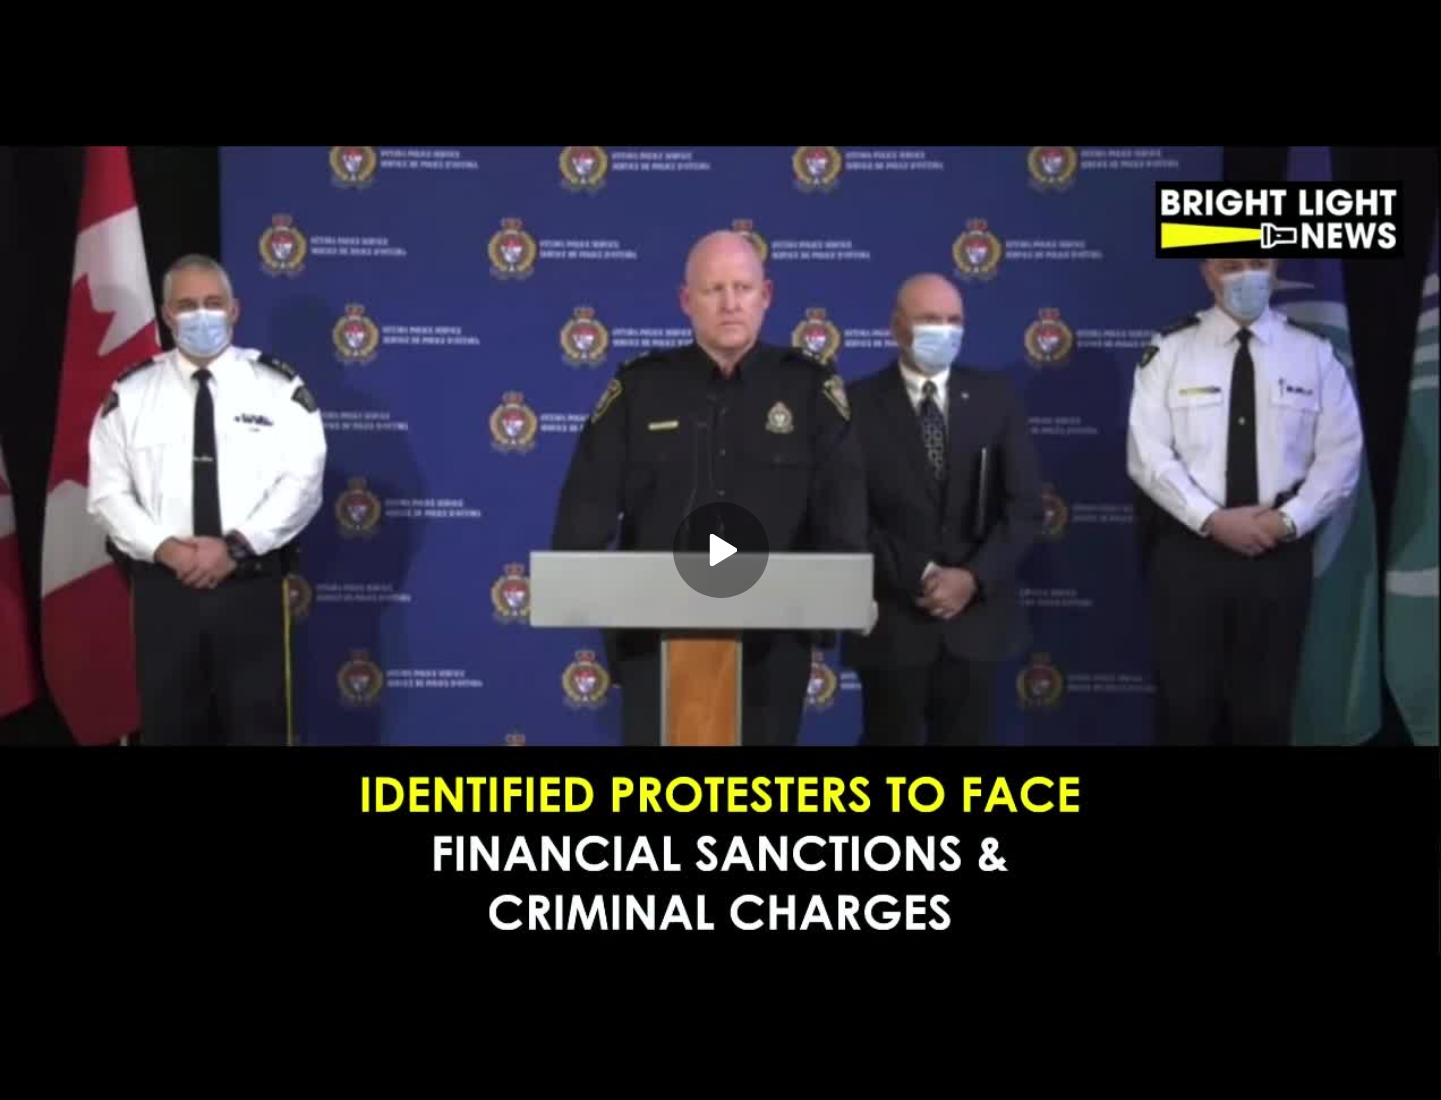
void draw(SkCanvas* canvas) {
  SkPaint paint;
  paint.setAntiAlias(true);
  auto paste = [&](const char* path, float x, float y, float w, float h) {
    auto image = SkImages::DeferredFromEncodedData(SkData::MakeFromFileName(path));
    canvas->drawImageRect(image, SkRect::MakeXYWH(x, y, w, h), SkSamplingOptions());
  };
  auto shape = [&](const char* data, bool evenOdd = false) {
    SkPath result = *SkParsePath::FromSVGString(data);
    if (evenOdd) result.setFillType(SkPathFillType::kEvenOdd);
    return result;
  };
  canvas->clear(0xff000000);
  paste("img/1.png", 0, 144, 1441, 812);
  paint.setColor(0x66000000);
  canvas->drawCircle(721, 550, 48, paint);
  paint.setColor(0xffffffff);
  canvas->drawPath(shape("M735 550L712 536V564Z"), paint);
  canvas->save();
  canvas->clipRect(SkRect::MakeXYWH(705, 534, 32, 32));
  paint.setStroke(true);
  paint.setStrokeWidth(4.4f);
  paint.setStrokeJoin(SkPaint::kRound_Join);
  canvas->drawPath(shape("M735 550L712 536V564Z"), paint);
  canvas->restore();
}
